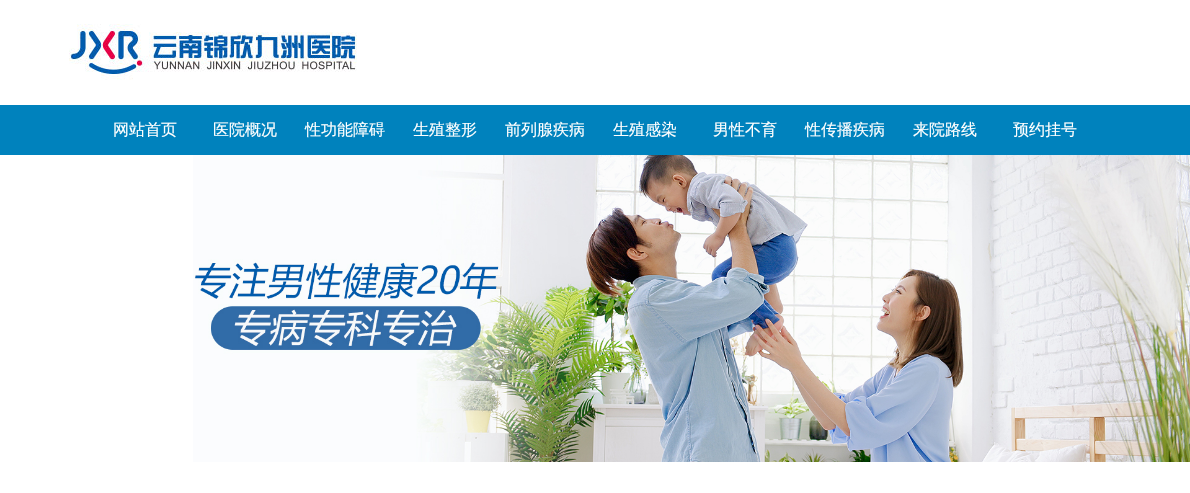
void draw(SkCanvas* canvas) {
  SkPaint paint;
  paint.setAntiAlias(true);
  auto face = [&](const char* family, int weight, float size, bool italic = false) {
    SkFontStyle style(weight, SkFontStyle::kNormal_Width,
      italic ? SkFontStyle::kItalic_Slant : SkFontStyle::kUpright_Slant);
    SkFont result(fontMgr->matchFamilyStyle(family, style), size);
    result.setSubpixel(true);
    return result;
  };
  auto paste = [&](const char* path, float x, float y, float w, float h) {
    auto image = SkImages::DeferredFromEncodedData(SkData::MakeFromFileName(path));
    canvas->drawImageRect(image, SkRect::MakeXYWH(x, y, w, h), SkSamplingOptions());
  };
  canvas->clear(0xffffffff);
  paste("img/1.png", 69, 24, 288, 56);
  paint.setColor(0xff0082bd);
  canvas->drawRect(SkRect::MakeXYWH(0, 105, 1190, 50), paint);
  paste("img/2.png", 193, 155, 997, 307);
  auto f0 = face("WenQuanYi Zen Hei", 500, 16);
  paint.setColor(0xffffffff);
  {
    const struct { const char* s; float x, y; } items[] = {
      {"网站首页", 113, 135},
      {"医院概况", 213, 135},
      {"性功能障碍", 305, 135},
      {"生殖整形", 413, 135},
      {"前列腺疾病", 505, 135},
      {"生殖感染", 613, 135},
      {"男性不育", 713, 135},
      {"性传播疾病", 805, 135},
      {"来院路线", 913, 135},
      {"预约挂号", 1013, 135},
    };
    for (auto [s, x, y] : items) {
      canvas->drawString(s, x, y, f0, paint);
    }
  }
}
